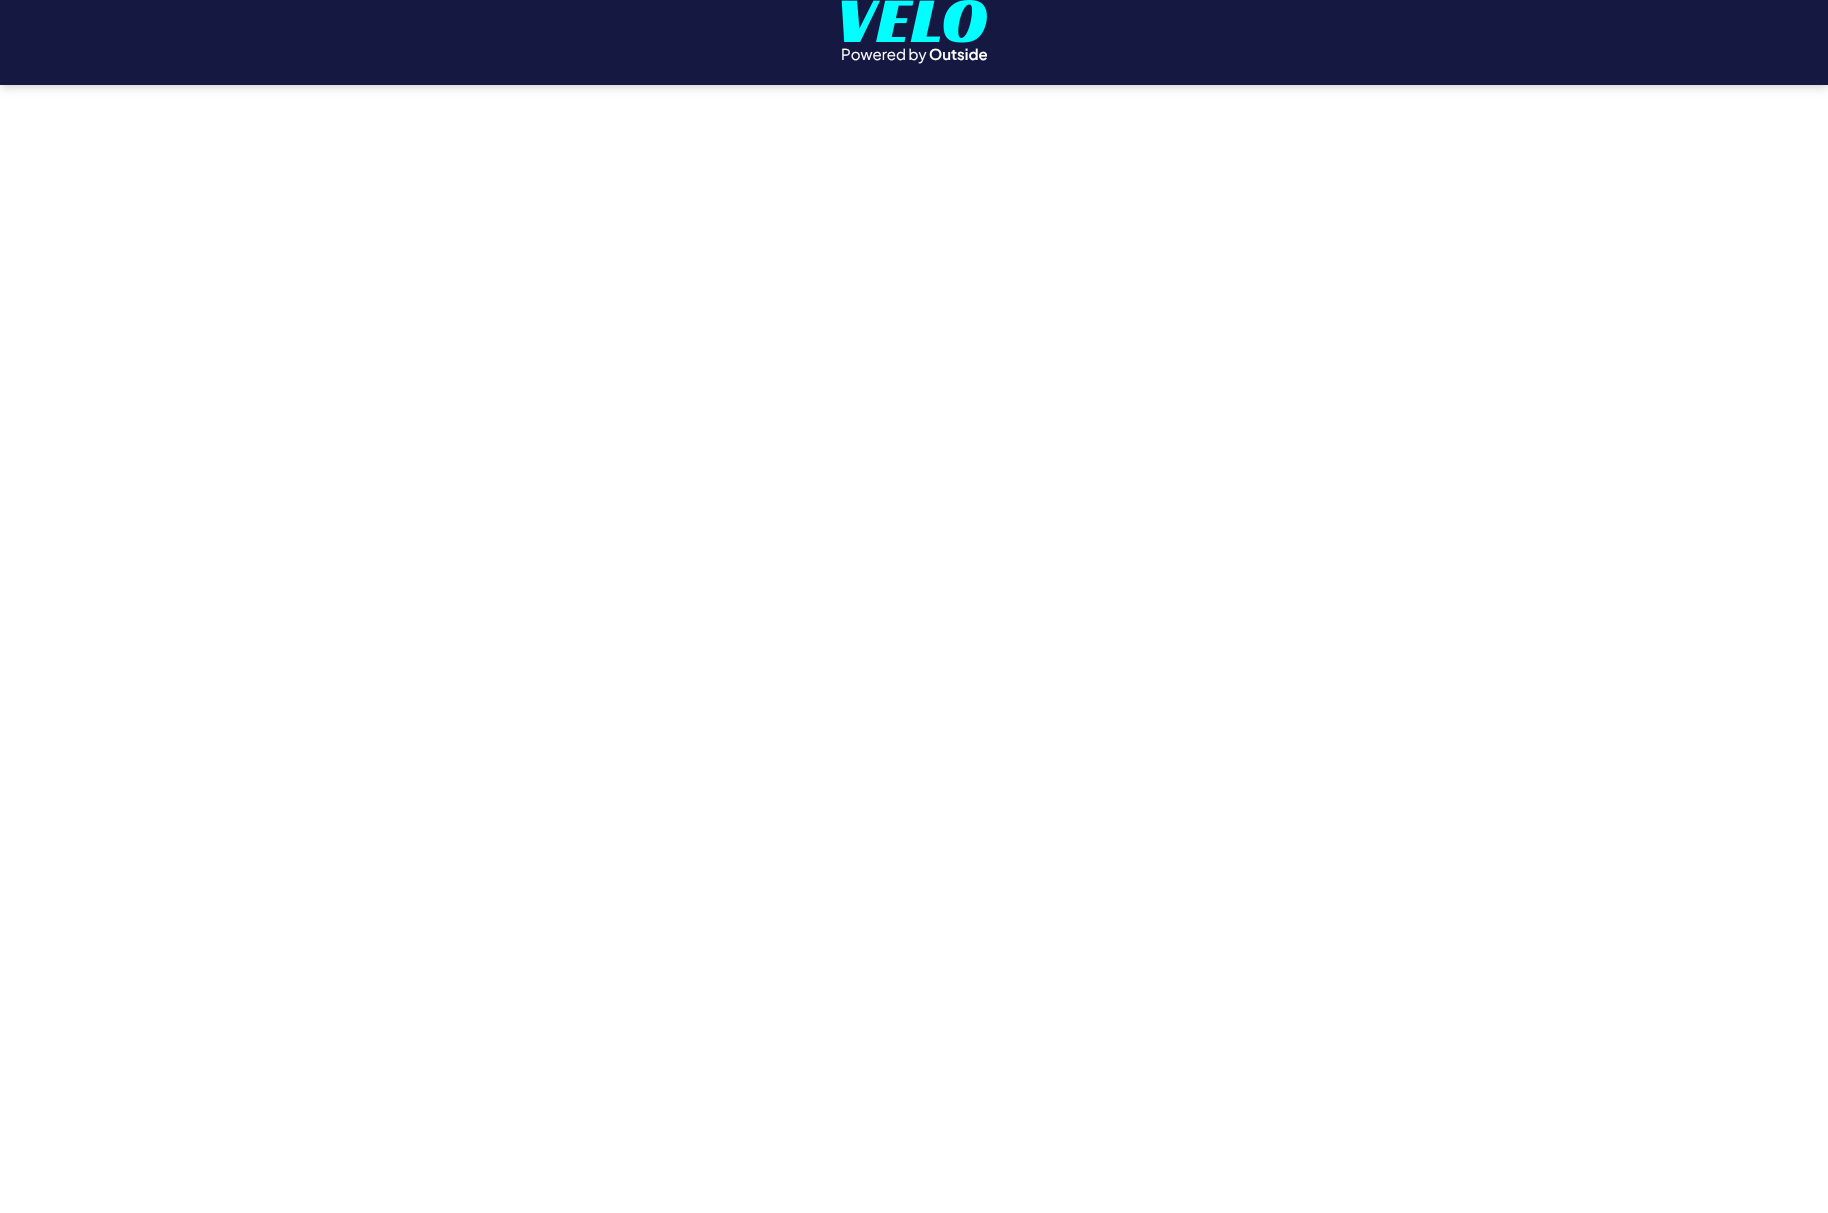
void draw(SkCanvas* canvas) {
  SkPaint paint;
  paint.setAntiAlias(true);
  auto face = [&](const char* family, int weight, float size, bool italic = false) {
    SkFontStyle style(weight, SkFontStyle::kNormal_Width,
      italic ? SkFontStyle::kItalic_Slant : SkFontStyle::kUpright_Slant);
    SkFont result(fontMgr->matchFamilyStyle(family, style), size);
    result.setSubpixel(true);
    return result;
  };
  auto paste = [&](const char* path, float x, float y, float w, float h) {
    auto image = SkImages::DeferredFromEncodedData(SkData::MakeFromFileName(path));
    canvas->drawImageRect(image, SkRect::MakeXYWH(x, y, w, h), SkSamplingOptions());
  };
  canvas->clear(0xffffffff);
  paint.setColor(0x1a000000);
  paint.setMaskFilter(SkMaskFilter::MakeBlur(kNormal_SkBlurStyle, 2.5f));
  canvas->drawRect(SkRect::MakeXYWH(3, 5, 1823, 80), paint);
  paint.setMaskFilter(nullptr);
  paint.setMaskFilter(SkMaskFilter::MakeBlur(kNormal_SkBlurStyle, 4));
  canvas->drawRect(SkRect::MakeXYWH(1, 6, 1827, 83), paint);
  paint.setMaskFilter(nullptr);
  paint.setColor(0xff151841);
  canvas->drawRect(SkRect::MakeXYWH(0, 0, 1828, 85), paint);
  paste("img/1.png", 841, 0, 146, 43);
  auto f0 = face("Plus Jakarta Sans", 400, 15);
  paint.setColor(0xffffffff);
  canvas->drawString("Powered by", 841, 60, f0, paint);
  auto f1 = face("Plus Jakarta Sans", 600, 15);
  canvas->drawString("Outside", 929, 60, f1, paint);
}
